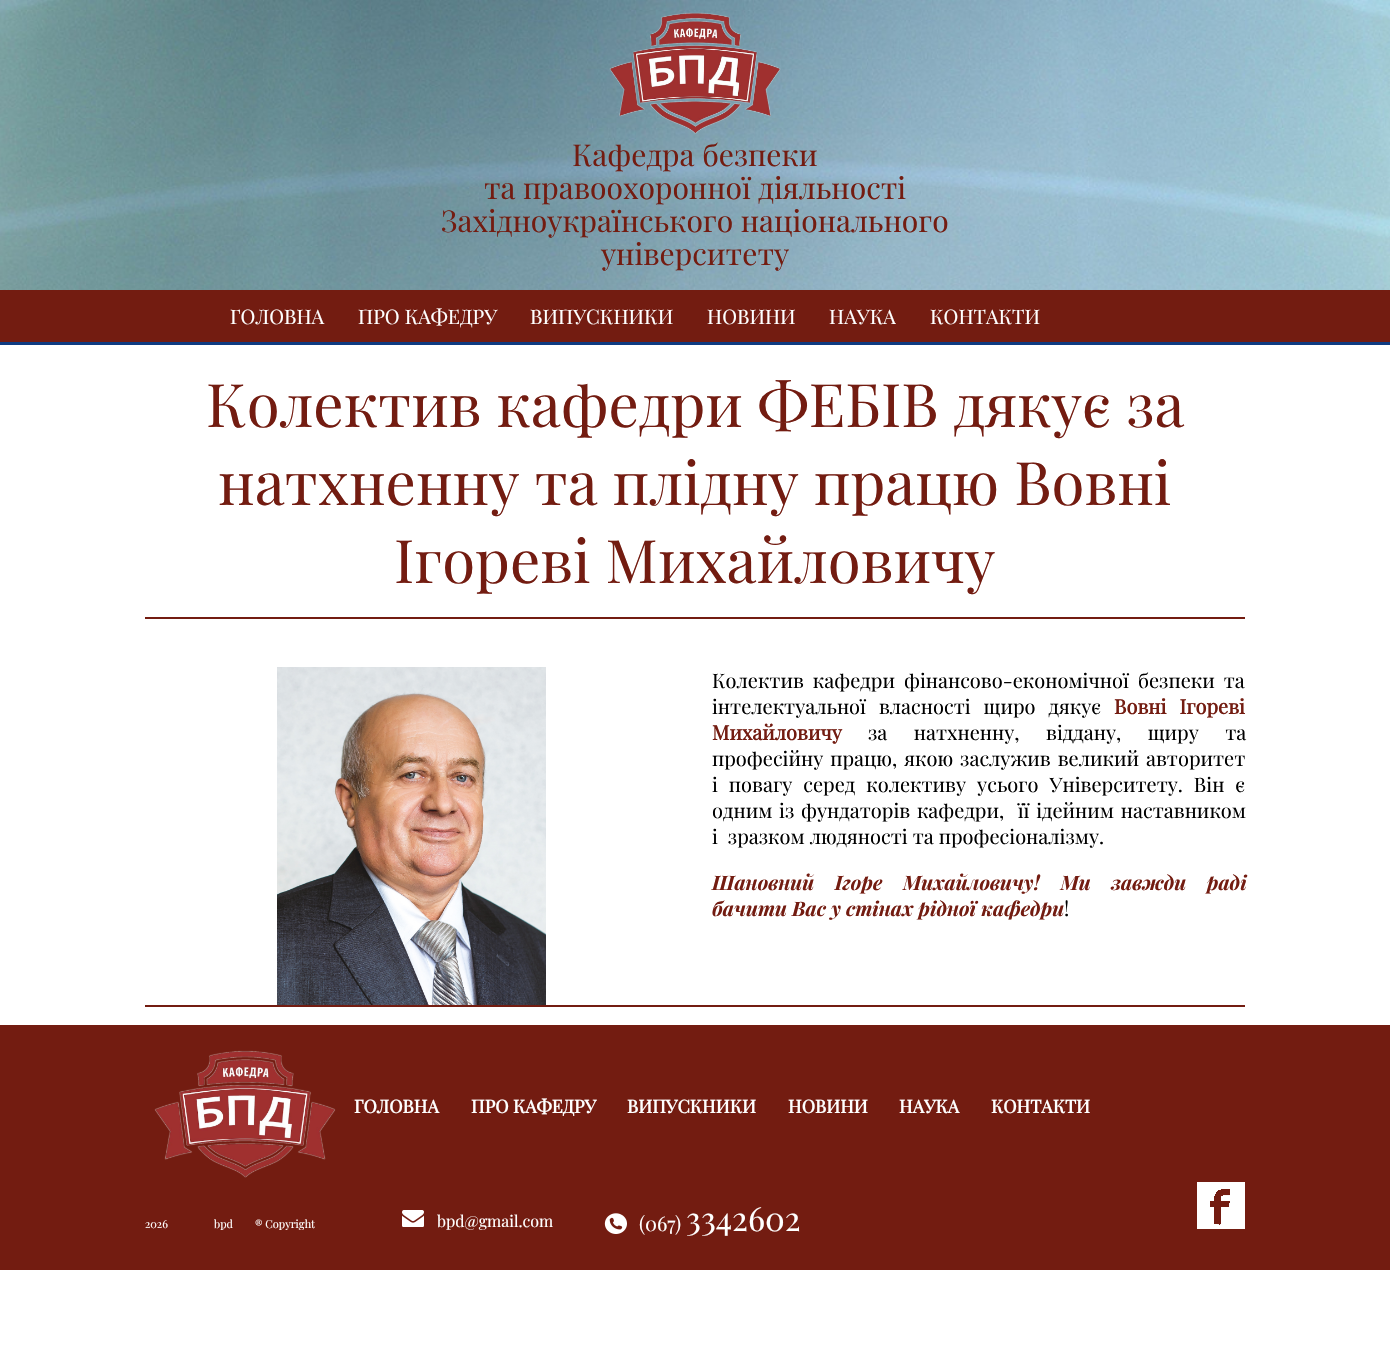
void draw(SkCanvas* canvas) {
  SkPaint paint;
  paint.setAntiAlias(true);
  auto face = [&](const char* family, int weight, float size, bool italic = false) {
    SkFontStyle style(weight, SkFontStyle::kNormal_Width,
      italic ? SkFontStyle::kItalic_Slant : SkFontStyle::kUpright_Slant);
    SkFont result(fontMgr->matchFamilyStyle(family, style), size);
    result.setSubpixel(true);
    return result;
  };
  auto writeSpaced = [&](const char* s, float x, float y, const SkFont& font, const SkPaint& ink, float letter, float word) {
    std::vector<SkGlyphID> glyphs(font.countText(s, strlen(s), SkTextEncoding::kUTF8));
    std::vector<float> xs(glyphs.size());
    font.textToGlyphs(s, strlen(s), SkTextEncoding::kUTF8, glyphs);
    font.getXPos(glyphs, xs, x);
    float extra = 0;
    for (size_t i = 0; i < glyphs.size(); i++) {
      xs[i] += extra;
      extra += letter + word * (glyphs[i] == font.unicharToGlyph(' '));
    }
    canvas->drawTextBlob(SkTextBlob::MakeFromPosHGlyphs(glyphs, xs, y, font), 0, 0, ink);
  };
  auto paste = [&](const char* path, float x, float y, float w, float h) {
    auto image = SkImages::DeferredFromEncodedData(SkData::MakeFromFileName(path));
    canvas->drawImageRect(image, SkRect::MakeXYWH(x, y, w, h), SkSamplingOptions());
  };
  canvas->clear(0xffffffff);
  paste("img/1.png", 0, 0, 1390, 290);
  paste("img/2.png", 609, 12, 172, 122);
  {
    const struct { float x, y, w, h; SkColor color; } items[] = {
      {0, 290, 1390, 52, 0xff731c11},
      {0, 342, 1390, 3, 0xff0e3b81},
      {145, 617, 1100, 2, 0xff731c11},
    };
    for (auto [x, y, w, h, color] : items) {
      paint.setColor(color);
      canvas->drawRect(SkRect::MakeXYWH(x, y, w, h), paint);
    }
  }
  paste("img/3.png", 277, 667, 269, 338);
  canvas->drawRect(SkRect::MakeXYWH(145, 1005, 1100, 2), paint);
  canvas->drawRect(SkRect::MakeXYWH(0, 1025, 1390, 245), paint);
  paste("img/4.png", 154, 1050, 182, 128);
  paste("img/5.png", 402, 1210, 22, 17);
  paste("img/6.png", 604, 1213, 23, 21);
  paste("img/7.png", 1197, 1182, 48, 47);
  auto f0 = face("Playfair Display", 400, 30);
  {
    const struct { const char* s; float x, y; } items[] = {
      {"Кафедра безпеки", 572, 166},
      {"та правоохоронної діяльності", 484, 199},
      {"Західноукраїнського національного", 441, 232},
      {"університету", 601, 265},
    };
    for (auto [s, x, y] : items) {
      canvas->drawString(s, x, y, f0, paint);
    }
  }
  auto f1 = face("Playfair Display", 400, 20);
  paint.setColor(0xffffffff);
  {
    const struct { const char* s; float x, y; } items[] = {
      {"ГОЛОВНА", 230, 324},
      {"ПРО КАФЕДРУ", 358, 324},
      {"ВИПУСКНИКИ", 530, 324},
      {"НОВИНИ", 707, 324},
      {"НАУКА", 829, 324},
      {"КОНТАКТИ", 930, 324},
    };
    for (auto [s, x, y] : items) {
      canvas->drawString(s, x, y, f1, paint);
    }
  }
  auto f2 = face("Playfair Display", 400, 60);
  paint.setColor(0xff731c11);
  {
    const struct { const char* s; float x, y; } items[] = {
      {"Колектив кафедри ФЕБІВ дякує за", 206, 427},
      {"натхненну та плідну працю Вовні", 218, 505},
      {"Ігореві Михайловичу", 394, 583},
    };
    for (auto [s, x, y] : items) {
      canvas->drawString(s, x, y, f2, paint);
    }
  }
  paint.setColor(0xff000000);
  writeSpaced("Колектив кафедри фінансово-економічної безпеки та", 712, 688, f1, paint, 0, 4);
  writeSpaced("інтелектуальної власності щиро дякує", 712, 714, f1, paint, 0, 8);
  auto f3 = face("Playfair Display", 700, 20);
  paint.setColor(0xff731c11);
  writeSpaced("Вовні Ігореві", 1114, 714, f3, paint, 0, 8);
  canvas->drawString("Михайловичу", 712, 740, f3, paint);
  paint.setColor(0xff000000);
  writeSpaced("за натхненну, віддану, щиру та", 868, 740, f1, paint, 0, 21.5f);
  writeSpaced("професійну працю, якою заслужив великий авторитет", 712, 766, f1, paint, 0, 2);
  writeSpaced("і повагу серед колективу усього Університету. Він є", 712, 792, f1, paint, 0, 6);
  writeSpaced("одним із фундаторів кафедри,  її ідейним наставником", 712, 818, f1, paint, 0, 1.75f);
  canvas->drawString("і  зразком людяності та професіоналізму.", 712, 844, f1, paint);
  auto f4 = face("Playfair Display", 700, 20, true);
  paint.setColor(0xff731c11);
  writeSpaced("Шановний Ігоре Михайловичу! Ми завжди раді", 712, 890, f4, paint, 0, 15.5f);
  canvas->drawString("бачити Вас у стінах рідної кафедри", 712, 916, f4, paint);
  paint.setColor(0xff000000);
  canvas->drawString("!", 1064, 916, f1, paint);
  auto f5 = face("Playfair Display", 700, 18);
  paint.setColor(0xffffffff);
  {
    const struct { const char* s; float x, y; } items[] = {
      {"ГОЛОВНА", 354, 1113},
      {"ПРО КАФЕДРУ", 471, 1113},
      {"ВИПУСКНИКИ", 627, 1113},
      {"НОВИНИ", 788, 1113},
      {"НАУКА", 899, 1113},
      {"КОНТАКТИ", 991, 1113},
    };
    for (auto [s, x, y] : items) {
      canvas->drawString(s, x, y, f5, paint);
    }
  }
  auto f6 = face("Playfair Display", 400, 11);
  {
    const struct { const char* s; float x, y; } items[] = {
      {"2026", 145, 1228},
      {"bpd", 214, 1228},
      {"® Copyright", 255, 1228},
    };
    for (auto [s, x, y] : items) {
      canvas->drawString(s, x, y, f6, paint);
    }
  }
  auto f7 = face("Playfair Display", 400, 16);
  canvas->drawString("bpd@gmail.com", 437, 1227, f7, paint);
  canvas->drawString("(067)", 639, 1231, f1, paint);
  auto f8 = face("Playfair Display", 400, 33);
  canvas->drawString("3342602", 686, 1231, f8, paint);
}
